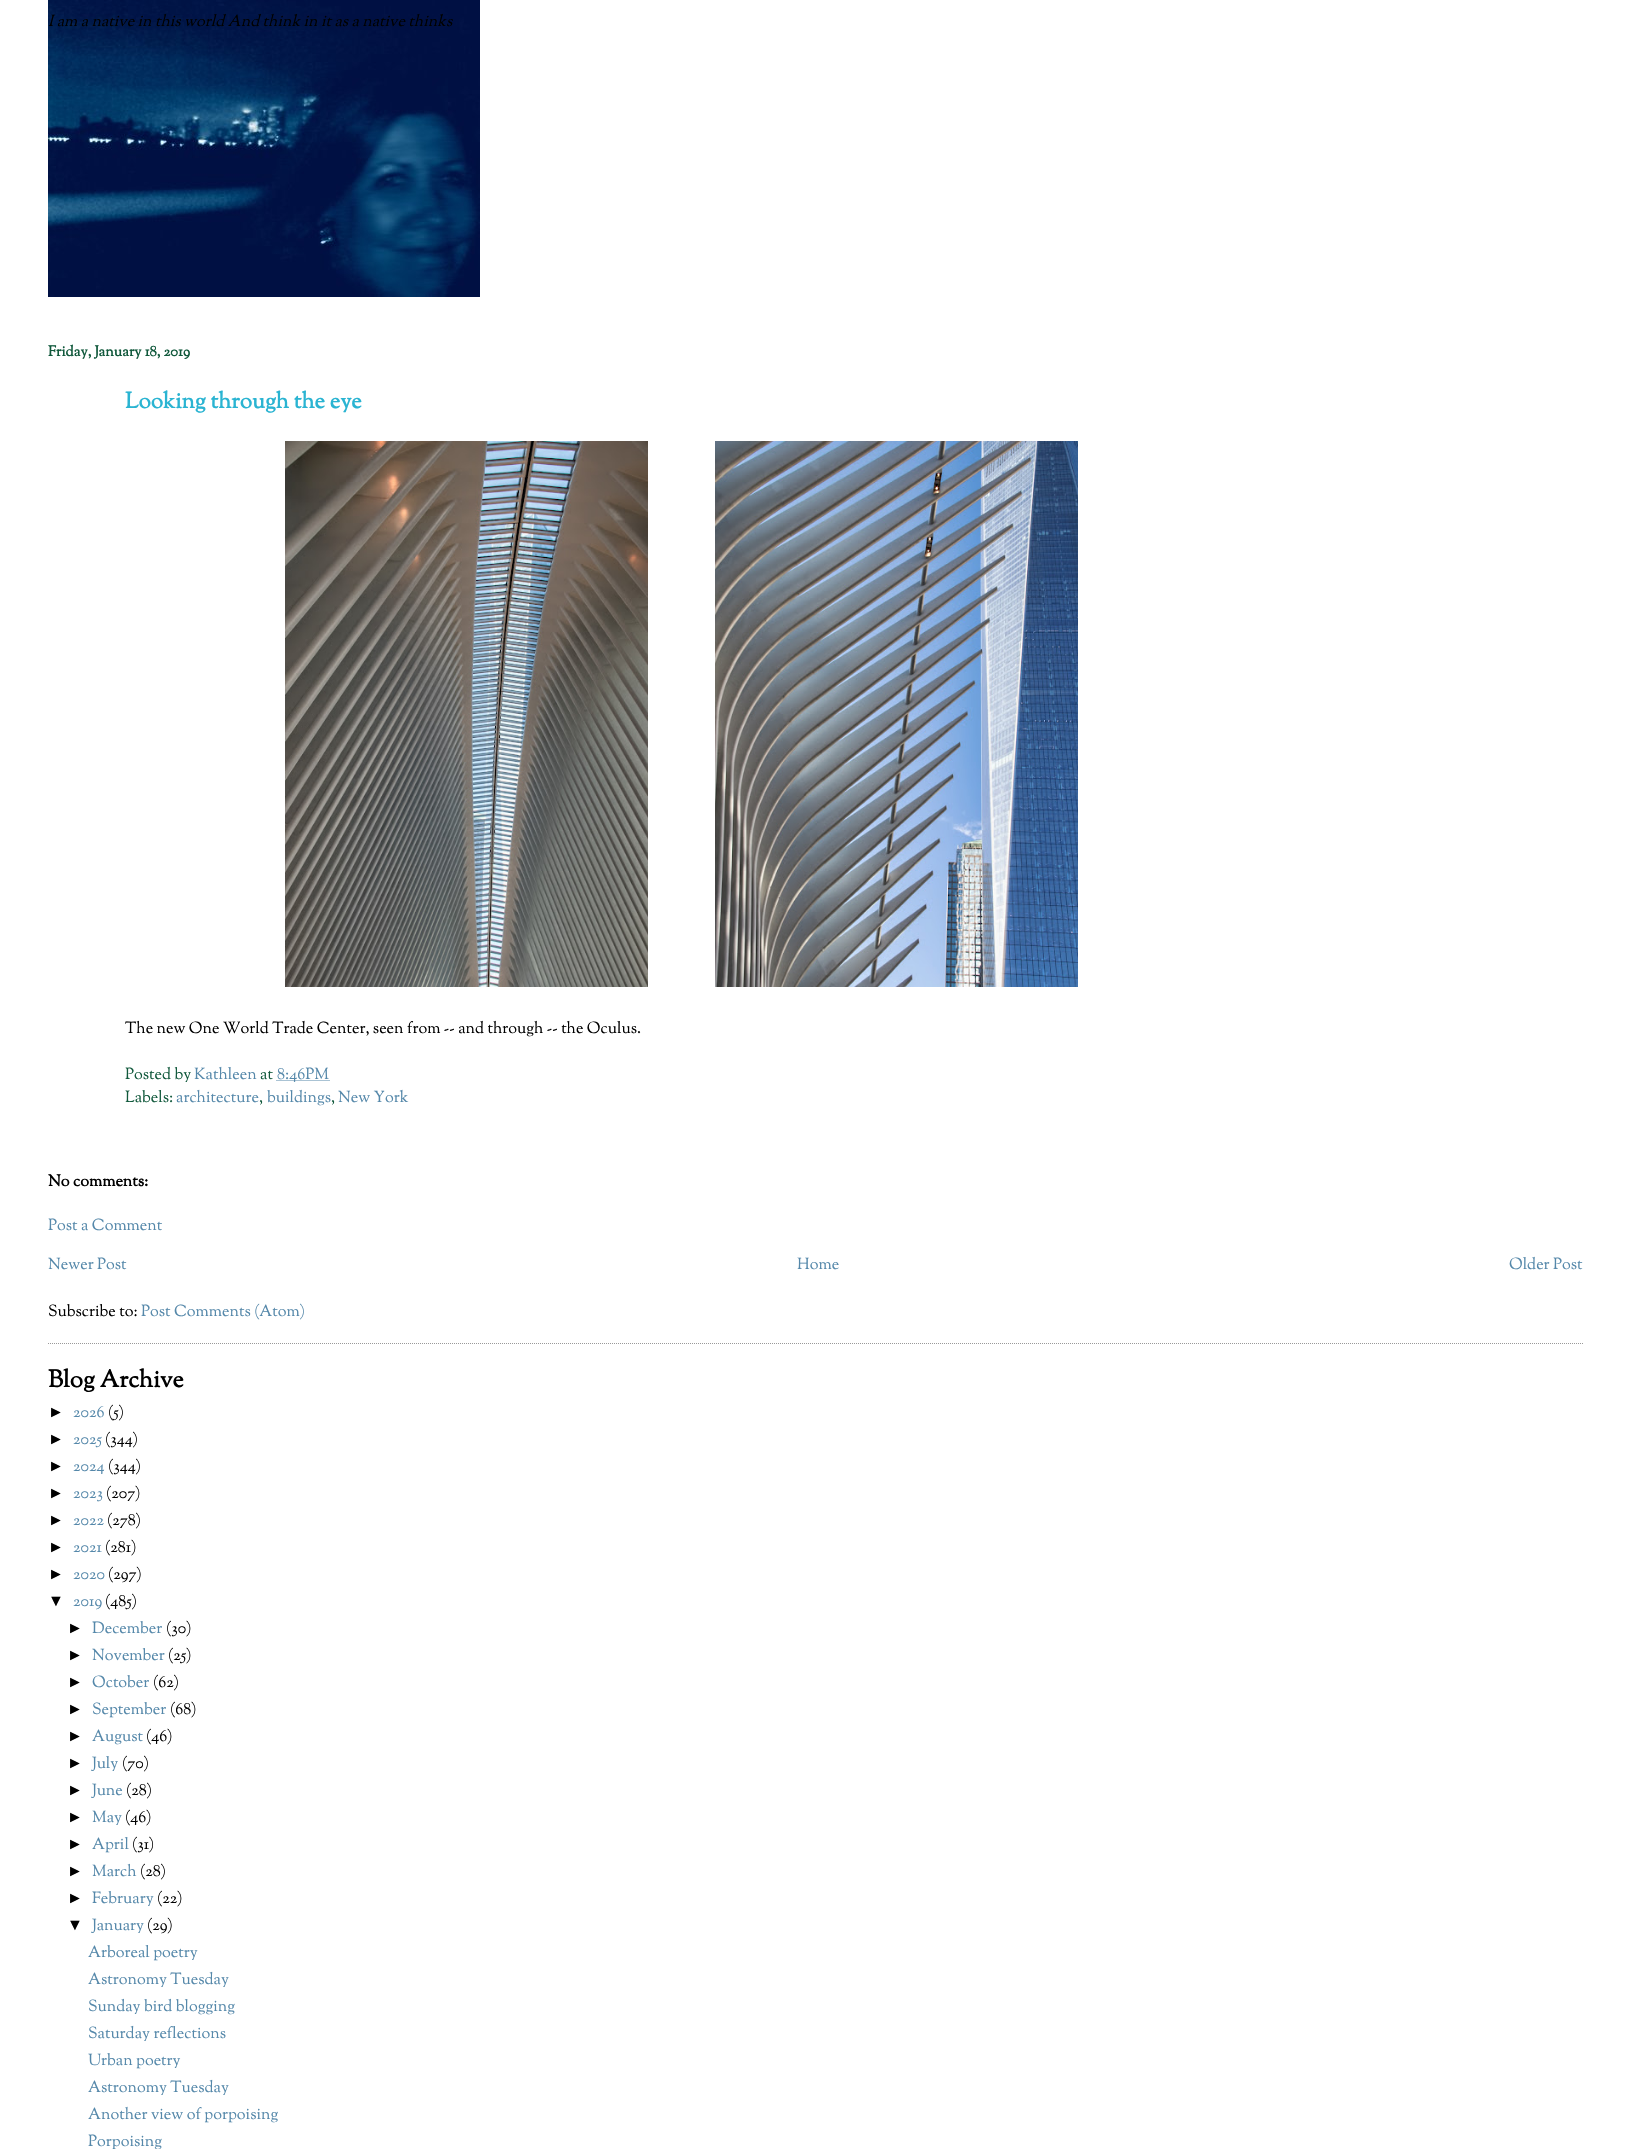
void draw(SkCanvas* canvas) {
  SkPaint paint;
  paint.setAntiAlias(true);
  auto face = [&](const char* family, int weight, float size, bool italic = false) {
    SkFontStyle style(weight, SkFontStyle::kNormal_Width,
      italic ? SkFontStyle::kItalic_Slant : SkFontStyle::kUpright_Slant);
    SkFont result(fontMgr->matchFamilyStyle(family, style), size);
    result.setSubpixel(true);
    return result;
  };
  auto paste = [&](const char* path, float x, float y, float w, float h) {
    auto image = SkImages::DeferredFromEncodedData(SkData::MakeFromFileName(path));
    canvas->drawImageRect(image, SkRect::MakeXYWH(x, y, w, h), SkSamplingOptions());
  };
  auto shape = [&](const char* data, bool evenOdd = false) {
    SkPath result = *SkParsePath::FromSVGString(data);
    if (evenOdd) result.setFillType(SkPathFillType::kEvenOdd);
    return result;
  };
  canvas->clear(0xffffffff);
  paste("img/1.png", 48, 0, 432, 297);
  paint.setStroke(true);
  paint.setStrokeWidth(1);
  paint.setColor(0xff999999);
  paint.setPathEffect(SkDashPathEffect::Make({{1, 1}}, 0));
  canvas->drawPath(shape("M48 1343.5H1583"), paint);
  paint.setPathEffect(nullptr);
  paste("img/2.png", 285, 441, 363, 546);
  paste("img/3.png", 715, 441, 363, 546);
  paint.setColor(0xff5588aa);
  paint.setPathEffect(SkDashPathEffect::Make({{1, 1}}, 0));
  canvas->drawPath(shape("M276.5 1080.5H330.5"), paint);
  paint.setPathEffect(nullptr);
  auto f0 = face("Sorts Mill Goudy", 400, 16, true);
  paint.setStroke(false);
  paint.setColor(0xff000000);
  canvas->drawString("I am a native in this world And think in it as a native thinks", 48, 26, f0, paint);
  auto f1 = face("Sorts Mill Goudy", 700, 14.5f);
  paint.setColor(0xff11593c);
  canvas->drawString("Friday, January 18, 2019", 48, 356, f1, paint);
  auto f2 = face("Sorts Mill Goudy", 700, 22.4f);
  paint.setColor(0xff2ab4d2);
  canvas->drawString("Looking through the eye", 125, 408, f2, paint);
  auto f3 = face("Sorts Mill Goudy", 400, 16);
  paint.setColor(0xff000000);
  canvas->drawString("The new One World Trade Center, seen from -- and through -- the Oculus.", 125, 1033, f3, paint);
  paint.setColor(0xff11593c);
  canvas->drawString("Posted by", 125, 1079, f3, paint);
  paint.setColor(0xff5588aa);
  canvas->drawString("Kathleen", 194, 1079, f3, paint);
  paint.setColor(0xff11593c);
  canvas->drawString("at", 260, 1079, f3, paint);
  paint.setColor(0xff5588aa);
  canvas->drawString("8:46 PM", 277, 1079, f3, paint);
  paint.setColor(0xff11593c);
  canvas->drawString("Labels:", 125, 1102, f3, paint);
  paint.setColor(0xff5588aa);
  canvas->drawString("architecture", 176, 1102, f3, paint);
  paint.setColor(0xff11593c);
  canvas->drawString(",", 259, 1102, f3, paint);
  paint.setColor(0xff5588aa);
  canvas->drawString("buildings", 267, 1102, f3, paint);
  paint.setColor(0xff11593c);
  canvas->drawString(",", 331, 1102, f3, paint);
  paint.setColor(0xff5588aa);
  canvas->drawString("New York", 338, 1102, f3, paint);
  auto f4 = face("Sorts Mill Goudy", 700, 16);
  paint.setColor(0xff000000);
  canvas->drawString("No comments:", 48, 1186, f4, paint);
  paint.setColor(0xff5588aa);
  {
    const struct { const char* s; float x, y; } items[] = {
      {"Post a Comment", 48, 1230},
      {"Newer Post", 48, 1269},
      {"Home", 797, 1269},
      {"Older Post", 1509, 1269},
    };
    for (auto [s, x, y] : items) {
      canvas->drawString(s, x, y, f3, paint);
    }
  }
  paint.setColor(0xff000000);
  canvas->drawString("Subscribe to:", 48, 1316, f3, paint);
  paint.setColor(0xff5588aa);
  canvas->drawString("Post Comments (Atom)", 141, 1316, f3, paint);
  auto f5 = face("Sorts Mill Goudy", 700, 24);
  paint.setColor(0xff000000);
  canvas->drawString("Blog Archive", 48, 1387, f5, paint);
  auto f6 = face("Liberation Sans", 400, 16);
  canvas->drawString("►", 48, 1417, f6, paint);
  paint.setColor(0xff5588aa);
  canvas->drawString("2026", 73, 1417, f3, paint);
  paint.setColor(0xff000000);
  canvas->drawString("(5)", 108, 1417, f3, paint);
  canvas->drawString("►", 48, 1444, f6, paint);
  paint.setColor(0xff5588aa);
  canvas->drawString("2025", 73, 1444, f3, paint);
  paint.setColor(0xff000000);
  canvas->drawString("(344)", 105, 1444, f3, paint);
  canvas->drawString("►", 48, 1471, f6, paint);
  paint.setColor(0xff5588aa);
  canvas->drawString("2024", 73, 1471, f3, paint);
  paint.setColor(0xff000000);
  canvas->drawString("(344)", 108, 1471, f3, paint);
  canvas->drawString("►", 48, 1498, f6, paint);
  paint.setColor(0xff5588aa);
  canvas->drawString("2023", 73, 1498, f3, paint);
  paint.setColor(0xff000000);
  canvas->drawString("(207)", 106, 1498, f3, paint);
  canvas->drawString("►", 48, 1525, f6, paint);
  paint.setColor(0xff5588aa);
  canvas->drawString("2022", 73, 1525, f3, paint);
  paint.setColor(0xff000000);
  canvas->drawString("(278)", 107, 1525, f3, paint);
  canvas->drawString("►", 48, 1552, f6, paint);
  paint.setColor(0xff5588aa);
  canvas->drawString("2021", 73, 1552, f3, paint);
  paint.setColor(0xff000000);
  canvas->drawString("(281)", 105, 1552, f3, paint);
  canvas->drawString("►", 48, 1579, f6, paint);
  paint.setColor(0xff5588aa);
  canvas->drawString("2020", 73, 1579, f3, paint);
  paint.setColor(0xff000000);
  canvas->drawString("(297)", 108, 1579, f3, paint);
  canvas->drawString("▼", 48, 1606, f6, paint);
  paint.setColor(0xff5588aa);
  canvas->drawString("2019", 73, 1606, f3, paint);
  paint.setColor(0xff000000);
  canvas->drawString("(485)", 105, 1606, f3, paint);
  canvas->drawString("►", 67, 1633, f6, paint);
  paint.setColor(0xff5588aa);
  canvas->drawString("December", 92, 1633, f3, paint);
  paint.setColor(0xff000000);
  canvas->drawString("(30)", 166, 1633, f3, paint);
  canvas->drawString("►", 67, 1660, f6, paint);
  paint.setColor(0xff5588aa);
  canvas->drawString("November", 92, 1660, f3, paint);
  paint.setColor(0xff000000);
  canvas->drawString("(25)", 168, 1660, f3, paint);
  canvas->drawString("►", 67, 1687, f6, paint);
  paint.setColor(0xff5588aa);
  canvas->drawString("October", 92, 1687, f3, paint);
  paint.setColor(0xff000000);
  canvas->drawString("(62)", 153, 1687, f3, paint);
  canvas->drawString("►", 67, 1714, f6, paint);
  paint.setColor(0xff5588aa);
  canvas->drawString("September", 92, 1714, f3, paint);
  paint.setColor(0xff000000);
  canvas->drawString("(68)", 170, 1714, f3, paint);
  canvas->drawString("►", 67, 1741, f6, paint);
  paint.setColor(0xff5588aa);
  canvas->drawString("August", 92, 1741, f3, paint);
  paint.setColor(0xff000000);
  canvas->drawString("(46)", 146, 1741, f3, paint);
  canvas->drawString("►", 67, 1768, f6, paint);
  paint.setColor(0xff5588aa);
  canvas->drawString("July", 92, 1768, f3, paint);
  paint.setColor(0xff000000);
  canvas->drawString("(70)", 122, 1768, f3, paint);
  canvas->drawString("►", 67, 1795, f6, paint);
  paint.setColor(0xff5588aa);
  canvas->drawString("June", 92, 1795, f3, paint);
  paint.setColor(0xff000000);
  canvas->drawString("(28)", 126, 1795, f3, paint);
  canvas->drawString("►", 67, 1822, f6, paint);
  paint.setColor(0xff5588aa);
  canvas->drawString("May", 92, 1822, f3, paint);
  paint.setColor(0xff000000);
  canvas->drawString("(46)", 125, 1822, f3, paint);
  canvas->drawString("►", 67, 1849, f6, paint);
  paint.setColor(0xff5588aa);
  canvas->drawString("April", 92, 1849, f3, paint);
  paint.setColor(0xff000000);
  canvas->drawString("(31)", 132, 1849, f3, paint);
  canvas->drawString("►", 67, 1876, f6, paint);
  paint.setColor(0xff5588aa);
  canvas->drawString("March", 92, 1876, f3, paint);
  paint.setColor(0xff000000);
  canvas->drawString("(28)", 140, 1876, f3, paint);
  canvas->drawString("►", 67, 1903, f6, paint);
  paint.setColor(0xff5588aa);
  canvas->drawString("February", 92, 1903, f3, paint);
  paint.setColor(0xff000000);
  canvas->drawString("(22)", 157, 1903, f3, paint);
  canvas->drawString("▼", 67, 1930, f6, paint);
  paint.setColor(0xff5588aa);
  canvas->drawString("January", 92, 1930, f3, paint);
  paint.setColor(0xff000000);
  canvas->drawString("(29)", 147, 1930, f3, paint);
  paint.setColor(0xff5588aa);
  {
    const struct { const char* s; float x, y; } items[] = {
      {"Arboreal poetry", 88, 1957},
      {"Astronomy Tuesday", 88, 1984},
      {"Sunday bird blogging", 88, 2011},
      {"Saturday reflections", 88, 2038},
      {"Urban poetry", 88, 2065},
      {"Astronomy Tuesday", 88, 2092},
      {"Another view of porpoising", 88, 2119},
      {"Porpoising", 88, 2146},
    };
    for (auto [s, x, y] : items) {
      canvas->drawString(s, x, y, f3, paint);
    }
  }
}
